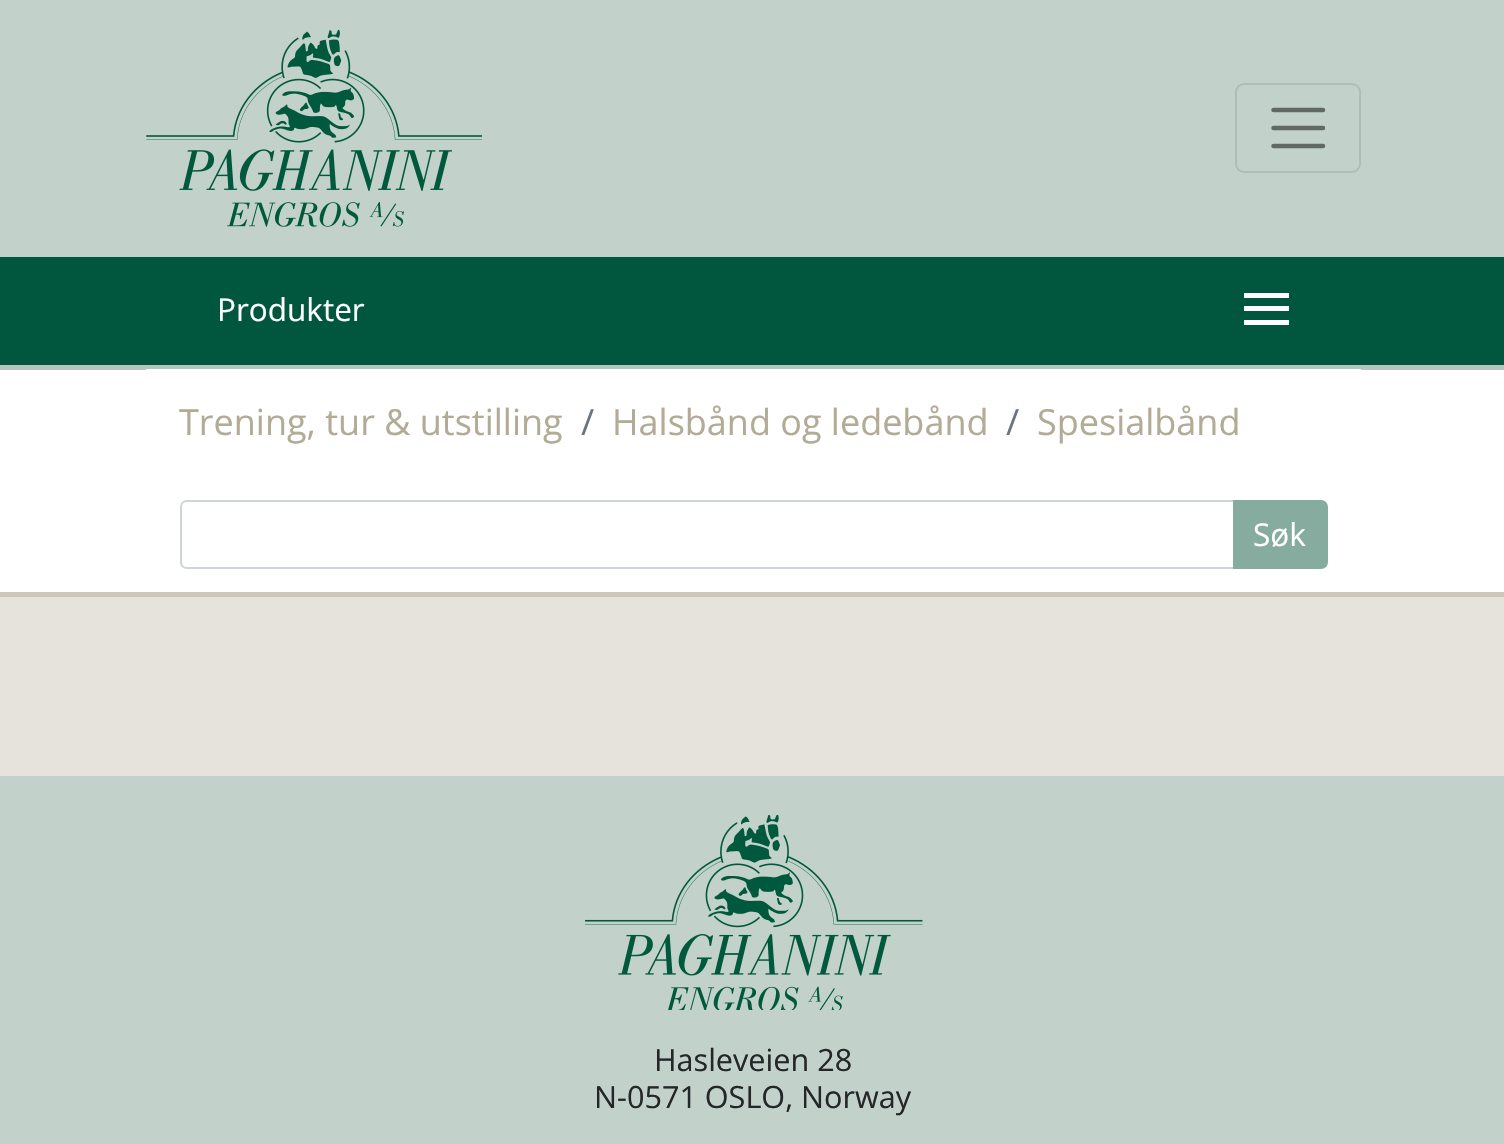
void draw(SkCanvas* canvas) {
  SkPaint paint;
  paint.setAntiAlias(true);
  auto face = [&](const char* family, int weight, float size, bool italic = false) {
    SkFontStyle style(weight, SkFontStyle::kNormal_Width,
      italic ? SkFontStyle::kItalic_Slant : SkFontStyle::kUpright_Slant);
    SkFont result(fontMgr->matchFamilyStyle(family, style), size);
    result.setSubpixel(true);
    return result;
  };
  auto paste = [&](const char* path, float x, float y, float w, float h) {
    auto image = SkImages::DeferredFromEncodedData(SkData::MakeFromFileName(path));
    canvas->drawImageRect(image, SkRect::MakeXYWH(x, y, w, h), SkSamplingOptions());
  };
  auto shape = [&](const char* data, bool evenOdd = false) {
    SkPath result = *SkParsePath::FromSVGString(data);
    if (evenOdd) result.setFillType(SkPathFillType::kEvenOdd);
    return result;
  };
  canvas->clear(0xffe6e3dc);
  paint.setColor(0xffc2d2ca);
  canvas->drawRect(SkRect::MakeXYWH(0, 0, 1504, 257), paint);
  paste("img/1.png", 146, 29, 336, 198);
  paint.setStroke(true);
  paint.setStrokeWidth(2);
  paint.setColor(0xffafbdb6);
  canvas->drawRoundRect(SkRect::MakeXYWH(1236, 84, 124, 88), 8, 8, paint);
  paint.setStrokeWidth(4.5f);
  paint.setStrokeCap(SkPaint::kRound_Cap);
  paint.setColor(0xff616965);
  canvas->drawPath(shape("M1273.5 110H1323M1273.5 128H1323M1273.5 146H1323"), paint);
  paint.setStroke(false);
  {
    const struct { float x, y, w, h; SkColor color; } items[] = {
      {0, 257, 1504, 108, 0xff00573d},
      {1244, 293, 45, 5, 0xffffffff},
      {1244, 306, 45, 5, 0xffffffff},
      {1244, 320, 45, 5, 0xffffffff},
      {0, 370, 1504, 222, 0xffffffff},
      {0, 365, 1504, 5, 0xffb5c7bd},
      {0, 592, 1504, 5, 0xffccc7b9},
      {146, 369, 1215, 1, 0xffffffff},
    };
    for (auto [x, y, w, h, color] : items) {
      paint.setColor(color);
      canvas->drawRect(SkRect::MakeXYWH(x, y, w, h), paint);
    }
  }
  paint.setStroke(true);
  paint.setStrokeWidth(2);
  paint.setStrokeCap(SkPaint::kButt_Cap);
  paint.setColor(0xffced4da);
  canvas->drawPath(shape("M187 501H1234V568H187C183.5 568 181 565.5 181 562V507C181 503.5 183.5 501 187 501Z"), paint);
  paint.setStroke(false);
  paint.setColor(0xff85ac9e);
  canvas->drawPath(shape("M1234 501H1321C1324.5 501 1327 503.5 1327 507V562C1327 565.5 1324.5 568 1321 568H1234Z"), paint);
  paint.setStroke(true);
  canvas->drawPath(shape("M1234 501H1321C1324.5 501 1327 503.5 1327 507V562C1327 565.5 1324.5 568 1321 568H1234Z"), paint);
  paint.setStroke(false);
  paint.setColor(0xffc2d2ca);
  canvas->drawRect(SkRect::MakeXYWH(0, 776, 1504, 368), paint);
  paste("img/2.png", 585, 815, 338, 195);
  auto f0 = face("Open Sans", 400, 31.5f);
  paint.setColor(0xffffffff);
  canvas->drawString("Produkter", 217, 321, f0, paint);
  auto f1 = face("Open Sans", 400, 36);
  paint.setColor(0xffb2ac97);
  canvas->drawString("Trening, tur & utstilling", 179, 435, f1, paint);
  paint.setColor(0xff6c757d);
  canvas->drawString("/", 581, 435, f1, paint);
  paint.setColor(0xffb2ac97);
  canvas->drawString("Halsbånd og ledebånd", 612, 435, f1, paint);
  paint.setColor(0xff6c757d);
  canvas->drawString("/", 1006, 435, f1, paint);
  paint.setColor(0xffb2ac97);
  canvas->drawString("Spesialbånd", 1037, 435, f1, paint);
  paint.setColor(0xffffffff);
  canvas->drawString("Søk", 1253, 546, f0, paint);
  auto f2 = face("Open Sans", 400, 30.6f);
  paint.setColor(0xff25262a);
  canvas->drawString("Hasleveien 28", 654, 1071, f2, paint);
  canvas->drawString("N-0571 OSLO, Norway", 594, 1108, f2, paint);
}
